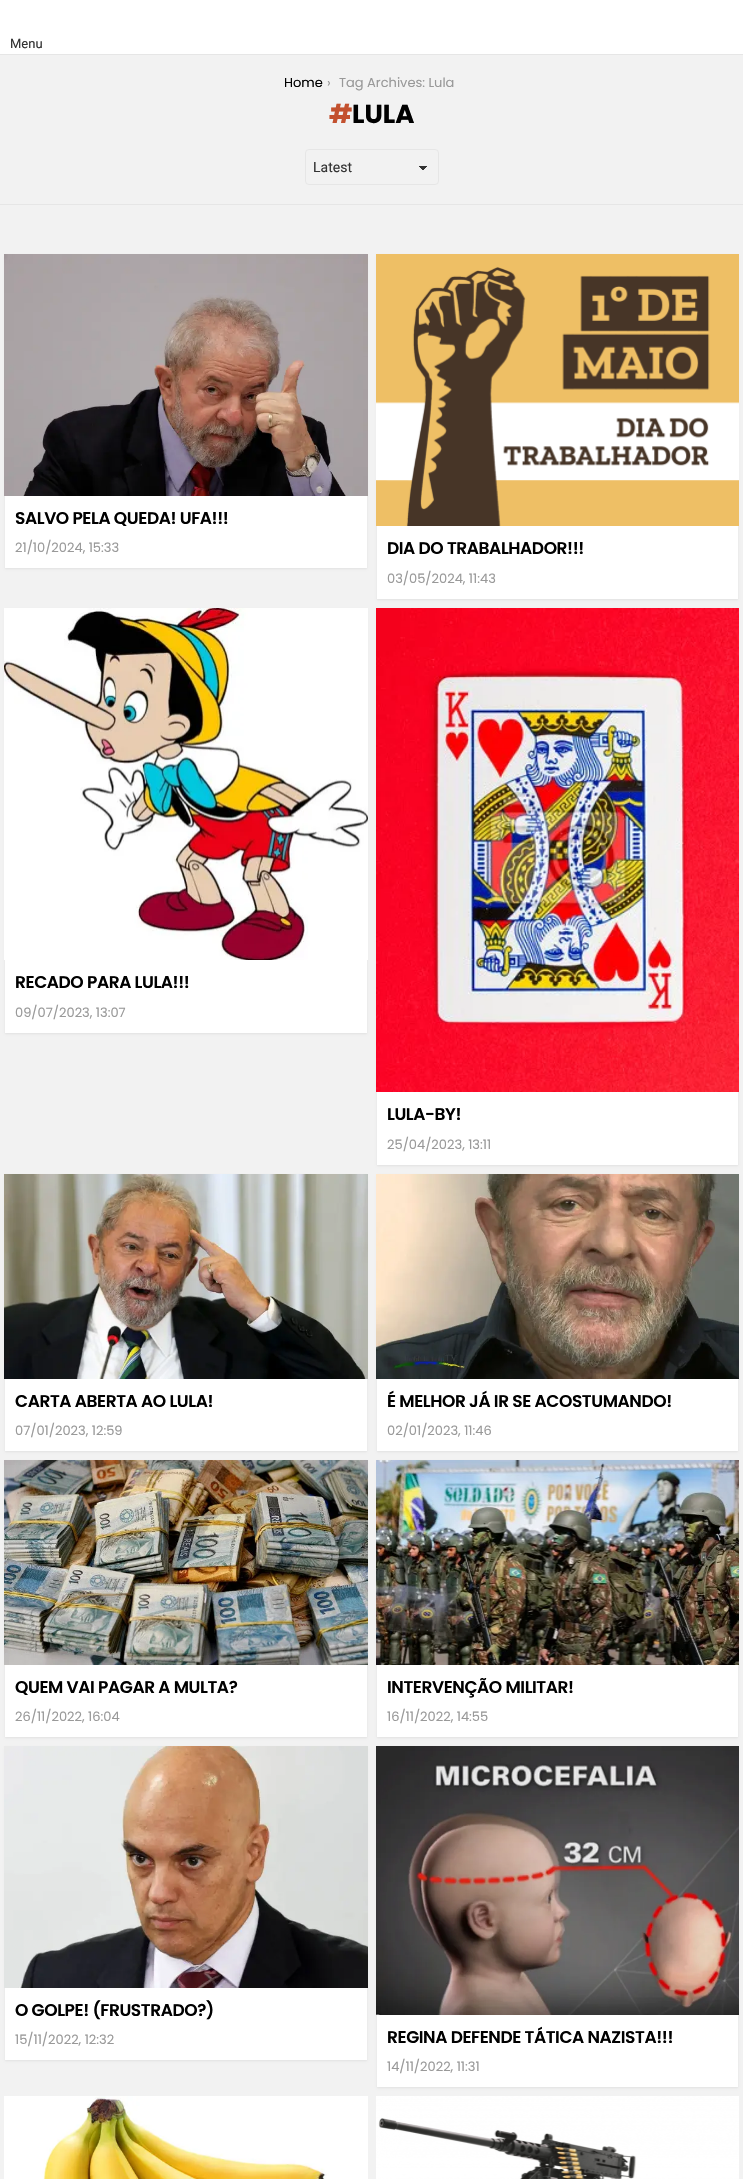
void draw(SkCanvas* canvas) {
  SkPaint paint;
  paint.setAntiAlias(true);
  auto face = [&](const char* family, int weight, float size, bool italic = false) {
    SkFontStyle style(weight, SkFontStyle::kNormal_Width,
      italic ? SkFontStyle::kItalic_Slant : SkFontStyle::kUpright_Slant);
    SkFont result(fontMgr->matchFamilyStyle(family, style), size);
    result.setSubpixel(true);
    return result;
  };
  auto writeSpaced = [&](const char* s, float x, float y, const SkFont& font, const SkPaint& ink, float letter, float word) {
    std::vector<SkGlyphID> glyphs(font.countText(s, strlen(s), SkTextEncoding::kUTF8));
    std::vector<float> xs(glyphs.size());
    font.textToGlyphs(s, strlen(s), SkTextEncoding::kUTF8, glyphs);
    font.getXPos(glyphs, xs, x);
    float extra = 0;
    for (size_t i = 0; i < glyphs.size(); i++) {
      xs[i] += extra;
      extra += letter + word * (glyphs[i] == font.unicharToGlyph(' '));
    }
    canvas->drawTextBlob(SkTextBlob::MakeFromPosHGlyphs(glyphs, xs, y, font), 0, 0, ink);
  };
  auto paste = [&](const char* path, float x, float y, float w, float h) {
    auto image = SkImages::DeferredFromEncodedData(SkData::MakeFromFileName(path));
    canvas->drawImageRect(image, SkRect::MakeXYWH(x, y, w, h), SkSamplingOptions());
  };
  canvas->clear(0xffffffff);
  {
    const struct { float x, y, w, h; SkColor color; } items[] = {
      {0, 54, 743, 1, 0xffe6e6e6},
      {0, 55, 743, 149, 0xfff2f2f2},
      {0, 204, 743, 1, 0xffe6e6e6},
    };
    for (auto [x, y, w, h, color] : items) {
      paint.setColor(color);
      canvas->drawRect(SkRect::MakeXYWH(x, y, w, h), paint);
    }
  }
  {
    const SkColor colors[] = {0xff333333, 0xfff2f2f2};
    const float stops[] = {0.5f, 0.5f};
    const SkPoint ends[] = {{423, 166}, {428, 170}};
    paint.setShader(SkGradientShader::MakeLinear(ends, colors, stops, 2, SkTileMode::kClamp));
    paint.setAlpha(255);
  }
  canvas->drawRect(SkRect::MakeXYWH(423, 166, 5, 4), paint);
  {
    const SkColor colors[] = {0xfff2f2f2, 0xff333333};
    const float stops[] = {0.5f, 0.5f};
    const SkPoint ends[] = {{418, 170}, {423, 166}};
    paint.setShader(SkGradientShader::MakeLinear(ends, colors, stops, 2, SkTileMode::kClamp));
    paint.setAlpha(255);
  }
  canvas->drawRect(SkRect::MakeXYWH(418, 166, 5, 4), paint);
  paint.setStroke(true);
  paint.setStrokeWidth(1);
  paint.setShader(nullptr);
  paint.setColor(0xffe6e6e6);
  canvas->drawRoundRect(SkRect::MakeXYWH(305.5f, 149.5f, 133, 35), 3.5f, 3.5f, paint);
  paint.setStroke(false);
  paint.setColor(0xfff2f2f2);
  canvas->drawRect(SkRect::MakeXYWH(0, 205, 743, 1974), paint);
  paint.setColor(0x12000000);
  paint.setMaskFilter(SkMaskFilter::MakeBlur(kNormal_SkBlurStyle, 1));
  canvas->drawRect(SkRect::MakeXYWH(5, 256, 362, 313), paint);
  paint.setMaskFilter(nullptr);
  paint.setColor(0xffffffff);
  canvas->drawRect(SkRect::MakeXYWH(5, 496, 362, 72), paint);
  paste("img/1.png", 4, 254, 364, 242);
  paint.setColor(0x12000000);
  paint.setMaskFilter(SkMaskFilter::MakeBlur(kNormal_SkBlurStyle, 1));
  canvas->drawRect(SkRect::MakeXYWH(377, 256, 361, 344), paint);
  paint.setMaskFilter(nullptr);
  paint.setColor(0xffffffff);
  canvas->drawRect(SkRect::MakeXYWH(377, 526, 361, 73), paint);
  paste("img/2.png", 376, 254, 363, 272);
  paint.setColor(0x12000000);
  paint.setMaskFilter(SkMaskFilter::MakeBlur(kNormal_SkBlurStyle, 1));
  canvas->drawRect(SkRect::MakeXYWH(5, 610, 362, 424), paint);
  paint.setMaskFilter(nullptr);
  paint.setColor(0xffffffff);
  canvas->drawRect(SkRect::MakeXYWH(5, 960, 362, 73), paint);
  paste("img/3.png", 4, 608, 364, 352);
  paint.setColor(0x12000000);
  paint.setMaskFilter(SkMaskFilter::MakeBlur(kNormal_SkBlurStyle, 1));
  canvas->drawRect(SkRect::MakeXYWH(377, 610, 361, 556), paint);
  paint.setMaskFilter(nullptr);
  paint.setColor(0xffffffff);
  canvas->drawRect(SkRect::MakeXYWH(377, 1092, 361, 73), paint);
  paste("img/4.png", 376, 608, 363, 484);
  paint.setColor(0x12000000);
  paint.setMaskFilter(SkMaskFilter::MakeBlur(kNormal_SkBlurStyle, 1));
  canvas->drawRect(SkRect::MakeXYWH(5, 1176, 362, 276), paint);
  paint.setMaskFilter(nullptr);
  paint.setColor(0xffffffff);
  canvas->drawRect(SkRect::MakeXYWH(5, 1379, 362, 72), paint);
  paste("img/5.png", 4, 1174, 364, 205);
  paint.setColor(0x12000000);
  paint.setMaskFilter(SkMaskFilter::MakeBlur(kNormal_SkBlurStyle, 1));
  canvas->drawRect(SkRect::MakeXYWH(377, 1176, 361, 276), paint);
  paint.setMaskFilter(nullptr);
  paint.setColor(0xffffffff);
  canvas->drawRect(SkRect::MakeXYWH(377, 1379, 361, 72), paint);
  paste("img/6.png", 376, 1174, 363, 205);
  paint.setColor(0x12000000);
  paint.setMaskFilter(SkMaskFilter::MakeBlur(kNormal_SkBlurStyle, 1));
  canvas->drawRect(SkRect::MakeXYWH(5, 1462, 362, 276), paint);
  paint.setMaskFilter(nullptr);
  paint.setColor(0xffffffff);
  canvas->drawRect(SkRect::MakeXYWH(5, 1665, 362, 72), paint);
  paste("img/7.png", 4, 1460, 364, 205);
  paint.setColor(0x12000000);
  paint.setMaskFilter(SkMaskFilter::MakeBlur(kNormal_SkBlurStyle, 1));
  canvas->drawRect(SkRect::MakeXYWH(377, 1462, 361, 276), paint);
  paint.setMaskFilter(nullptr);
  paint.setColor(0xffffffff);
  canvas->drawRect(SkRect::MakeXYWH(377, 1665, 361, 72), paint);
  paste("img/8.png", 376, 1460, 363, 205);
  paint.setColor(0x12000000);
  paint.setMaskFilter(SkMaskFilter::MakeBlur(kNormal_SkBlurStyle, 1));
  canvas->drawRect(SkRect::MakeXYWH(5, 1748, 362, 313), paint);
  paint.setMaskFilter(nullptr);
  paint.setColor(0xffffffff);
  canvas->drawRect(SkRect::MakeXYWH(5, 1988, 362, 72), paint);
  paste("img/9.png", 4, 1746, 364, 242);
  paint.setColor(0x12000000);
  paint.setMaskFilter(SkMaskFilter::MakeBlur(kNormal_SkBlurStyle, 1));
  canvas->drawRect(SkRect::MakeXYWH(377, 1748, 361, 340), paint);
  paint.setMaskFilter(nullptr);
  paint.setColor(0xffffffff);
  canvas->drawRect(SkRect::MakeXYWH(377, 2015, 361, 72), paint);
  paste("img/10.png", 376, 1746, 363, 269);
  paste("img/11.png", 4, 2096, 364, 83);
  paste("img/12.png", 376, 2096, 363, 83);
  auto f0 = face("Roboto", 400, 13);
  paint.setColor(0xff333333);
  canvas->drawString("Menu", 10, 48, f0, paint);
  auto f1 = face("Poppins", 400, 13);
  paint.setColor(0xff000000);
  canvas->drawString("Home", 284, 87, f1, paint);
  paint.setColor(0xff999999);
  canvas->drawString("›", 327, 87, f1, paint);
  canvas->drawString("Tag Archives: Lula", 339, 87, f1, paint);
  auto f2 = face("Poppins", 700, 26);
  paint.setColor(0xffc3512f);
  canvas->drawString("#", 329, 123, f2, paint);
  paint.setColor(0xff000000);
  canvas->drawString("LULA", 352, 123, f2, paint);
  auto f3 = face("Roboto", 400, 14);
  paint.setColor(0xff333333);
  canvas->drawString("Latest", 313, 172, f3, paint);
  auto f4 = face("Poppins", 600, 17);
  paint.setColor(0xff000000);
  writeSpaced("SALVO PELA QUEDA! UFA!!!", 15, 524, f4, paint, -0.4f, 0);
  paint.setColor(0xff999999);
  canvas->drawString("21/10/2024, 15:33", 15, 552, f1, paint);
  paint.setColor(0xff000000);
  writeSpaced("DIA DO TRABALHADOR!!!", 387, 554, f4, paint, -0.4f, 0);
  paint.setColor(0xff999999);
  canvas->drawString("03/05/2024, 11:43", 387, 583, f1, paint);
  paint.setColor(0xff000000);
  writeSpaced("RECADO PARA LULA!!!", 15, 988, f4, paint, -0.4f, 0);
  paint.setColor(0xff999999);
  canvas->drawString("09/07/2023, 13:07", 15, 1017, f1, paint);
  paint.setColor(0xff000000);
  writeSpaced("LULA-BY!", 387, 1120, f4, paint, -0.4f, 0);
  paint.setColor(0xff999999);
  canvas->drawString("25/04/2023, 13:11", 387, 1149, f1, paint);
  paint.setColor(0xff000000);
  writeSpaced("CARTA ABERTA AO LULA!", 15, 1407, f4, paint, -0.4f, 0);
  paint.setColor(0xff999999);
  canvas->drawString("07/01/2023, 12:59", 15, 1435, f1, paint);
  paint.setColor(0xff000000);
  writeSpaced("É MELHOR JÁ IR SE ACOSTUMANDO!", 387, 1407, f4, paint, -0.4f, 0);
  paint.setColor(0xff999999);
  canvas->drawString("02/01/2023, 11:46", 387, 1435, f1, paint);
  paint.setColor(0xff000000);
  writeSpaced("QUEM VAI PAGAR A MULTA?", 15, 1693, f4, paint, -0.4f, 0);
  paint.setColor(0xff999999);
  canvas->drawString("26/11/2022, 16:04", 15, 1721, f1, paint);
  paint.setColor(0xff000000);
  writeSpaced("INTERVENÇÃO MILITAR!", 387, 1693, f4, paint, -0.4f, 0);
  paint.setColor(0xff999999);
  canvas->drawString("16/11/2022, 14:55", 387, 1721, f1, paint);
  paint.setColor(0xff000000);
  writeSpaced("O GOLPE! (FRUSTRADO?)", 15, 2016, f4, paint, -0.4f, 0);
  paint.setColor(0xff999999);
  canvas->drawString("15/11/2022, 12:32", 15, 2044, f1, paint);
  paint.setColor(0xff000000);
  writeSpaced("REGINA DEFENDE TÁTICA NAZISTA!!!", 387, 2043, f4, paint, -0.4f, 0);
  paint.setColor(0xff999999);
  canvas->drawString("14/11/2022, 11:31", 387, 2071, f1, paint);
}
